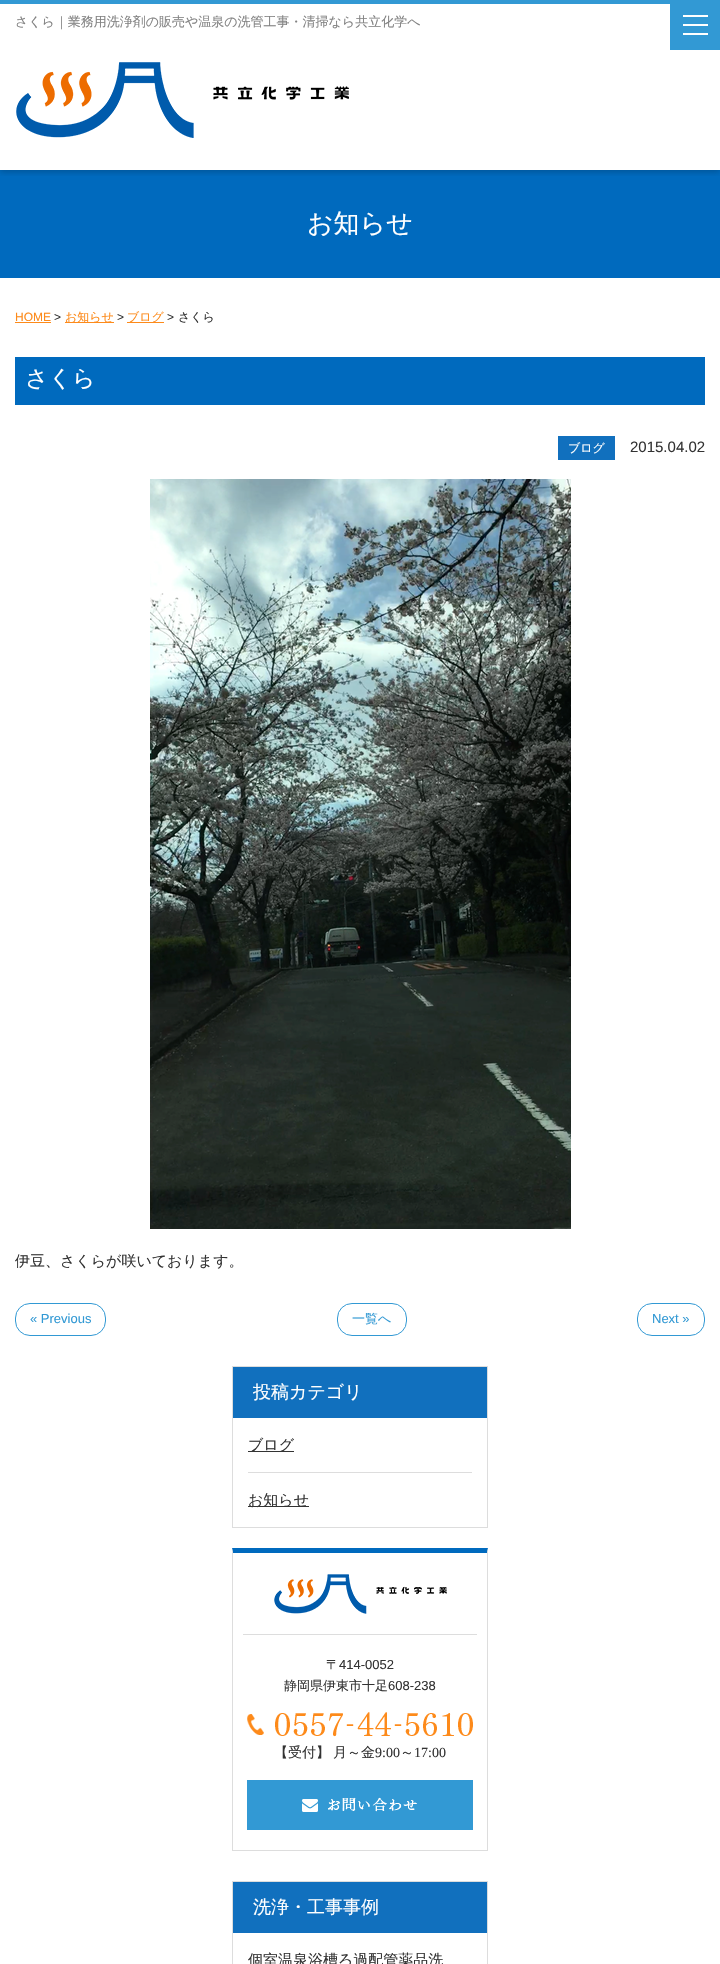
void draw(SkCanvas* canvas) {
  SkPaint paint;
  paint.setAntiAlias(true);
  auto face = [&](const char* family, int weight, float size, bool italic = false) {
    SkFontStyle style(weight, SkFontStyle::kNormal_Width,
      italic ? SkFontStyle::kItalic_Slant : SkFontStyle::kUpright_Slant);
    SkFont result(fontMgr->matchFamilyStyle(family, style), size);
    result.setSubpixel(true);
    return result;
  };
  auto paste = [&](const char* path, float x, float y, float w, float h) {
    auto image = SkImages::DeferredFromEncodedData(SkData::MakeFromFileName(path));
    canvas->drawImageRect(image, SkRect::MakeXYWH(x, y, w, h), SkSamplingOptions());
  };
  auto shape = [&](const char* data, bool evenOdd = false) {
    SkPath result = *SkParsePath::FromSVGString(data);
    if (evenOdd) result.setFillType(SkPathFillType::kEvenOdd);
    return result;
  };
  canvas->clear(0xffffffff);
  paint.setColor(0xff006abe);
  canvas->drawRect(SkRect::MakeXYWH(0, 170, 720, 108), paint);
  canvas->save();
  canvas->clipRect(SkRect::MakeXYWH(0, 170, 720, 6));
  paint.setColor(0x33000000);
  paint.setMaskFilter(SkMaskFilter::MakeBlur(kNormal_SkBlurStyle, 3));
  canvas->drawRect(SkRect::MakeXYWH(0, 2, 720, 170), paint);
  paint.setMaskFilter(nullptr);
  canvas->restore();
  {
    const struct { float x, y, w, h; SkColor color; } items[] = {
      {0, 0, 670, 4, 0xff3299d4},
      {670, 0, 50, 50, 0xff3299d4},
      {683, 15, 25, 2, 0xffffffff},
      {683, 24, 25, 2, 0xffffffff},
      {683, 33, 25, 2, 0xffffffff},
    };
    for (auto [x, y, w, h, color] : items) {
      paint.setColor(color);
      canvas->drawRect(SkRect::MakeXYWH(x, y, w, h), paint);
    }
  }
  paste("img/1.png", 16, 62, 333, 76);
  {
    const struct { float x, y, w, h; SkColor color; } items[] = {
      {15, 322, 36, 1, 0xfffd8a1a},
      {65, 322, 49, 1, 0xfffd8a1a},
      {127, 322, 37, 1, 0xfffd8a1a},
      {15, 357, 690, 48, 0xff006abe},
      {558, 436, 57, 24, 0xff1170be},
    };
    for (auto [x, y, w, h, color] : items) {
      paint.setColor(color);
      canvas->drawRect(SkRect::MakeXYWH(x, y, w, h), paint);
    }
  }
  paste("img/2.png", 150, 479, 421, 750);
  paint.setStroke(true);
  paint.setStrokeWidth(1);
  paint.setColor(0xff3299d4);
  canvas->drawRoundRect(SkRect::MakeXYWH(15.5f, 1303.5f, 90, 32), 14.5f, 14.5f, paint);
  canvas->drawRoundRect(SkRect::MakeXYWH(337.5f, 1303.5f, 69, 32), 14.5f, 14.5f, paint);
  canvas->drawRoundRect(SkRect::MakeXYWH(637.5f, 1303.5f, 67, 32), 14.5f, 14.5f, paint);
  paint.setColor(0xffdddddd);
  canvas->drawRect(SkRect::MakeXYWH(232.5f, 1366.5f, 255, 161), paint);
  paint.setStroke(false);
  {
    const struct { float x, y, w, h; SkColor color; } items[] = {
      {233, 1367, 254, 51, 0xff1170be},
      {248, 1472, 224, 1, 0xffdddddd},
      {248, 1451, 46, 1, 0xff333333},
      {248, 1506, 61, 1, 0xff333333},
    };
    for (auto [x, y, w, h, color] : items) {
      paint.setColor(color);
      canvas->drawRect(SkRect::MakeXYWH(x, y, w, h), paint);
    }
  }
  paint.setColor(0xff006abe);
  canvas->drawPath(shape("M232 1548H488L487 1553H233Z"), paint);
  paint.setColor(0xffdddddd);
  canvas->drawPath(shape("M488 1548V1851L487 1850V1553Z"), paint);
  canvas->drawRect(SkRect::MakeXYWH(232, 1850, 256, 1), paint);
  canvas->drawPath(shape("M232 1851V1548L233 1553V1850Z"), paint);
  paste("img/3.png", 274, 1574, 173, 40);
  canvas->drawRect(SkRect::MakeXYWH(243, 1634, 234, 1), paint);
  paste("img/4.png", 247, 1712, 226, 25);
  paste("img/5.png", 247, 1780, 226, 50);
  paint.setStroke(true);
  canvas->drawRect(SkRect::MakeXYWH(232.5f, 1881.5f, 255, 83), paint);
  paint.setStroke(false);
  paint.setColor(0xff1170be);
  canvas->drawRect(SkRect::MakeXYWH(233, 1882, 254, 51), paint);
  auto f0 = face("WenQuanYi Zen Hei", 500, 13);
  paint.setColor(0xff828282);
  canvas->drawString("さくら｜業務用洗浄剤の販売や温泉の洗管工事・清掃なら共立化学へ", 15, 26, f0, paint);
  auto f1 = face("WenQuanYi Zen Hei", 500, 26);
  paint.setColor(0xffffffff);
  canvas->drawString("お知らせ", 307, 232, f1, paint);
  auto f2 = face("Liberation Sans", 400, 12);
  paint.setColor(0xfffd8a1a);
  canvas->drawString("HOME", 15, 321, f2, paint);
  paint.setColor(0xff333333);
  canvas->drawString(">", 54, 321, f2, paint);
  auto f3 = face("WenQuanYi Zen Hei", 500, 12);
  paint.setColor(0xfffd8a1a);
  canvas->drawString("お知らせ", 65, 321, f3, paint);
  paint.setColor(0xff333333);
  canvas->drawString(">", 117, 321, f2, paint);
  paint.setColor(0xfffd8a1a);
  canvas->drawString("ブログ", 127, 321, f3, paint);
  paint.setColor(0xff333333);
  canvas->drawString(">", 167, 321, f2, paint);
  canvas->drawString("さくら", 178, 321, f3, paint);
  auto f4 = face("WenQuanYi Zen Hei", 500, 23);
  paint.setColor(0xffffffff);
  canvas->drawString("さくら", 25, 386, f4, paint);
  canvas->drawString("ブログ", 568, 452, f3, paint);
  auto f5 = face("Liberation Sans", 400, 15);
  paint.setColor(0xff333333);
  canvas->drawString("2015.04.02", 630, 452, f5, paint);
  auto f6 = face("WenQuanYi Zen Hei", 500, 15);
  canvas->drawString("伊豆、さくらが咲いております。", 15, 1266, f6, paint);
  auto f7 = face("Liberation Sans", 400, 13);
  paint.setColor(0xff3299d4);
  canvas->drawString("« Previous", 30, 1323, f7, paint);
  canvas->drawString("一覧へ", 352, 1323, f0, paint);
  canvas->drawString("Next »", 652, 1323, f7, paint);
  auto f8 = face("WenQuanYi Zen Hei", 500, 18);
  paint.setColor(0xffffffff);
  canvas->drawString("投稿カテゴリ", 253, 1398, f8, paint);
  paint.setColor(0xff333333);
  canvas->drawString("ブログ", 248, 1450, f6, paint);
  canvas->drawString("お知らせ", 248, 1505, f6, paint);
  canvas->drawString("〒", 326, 1669, f0, paint);
  canvas->drawString("414-0052", 339, 1669, f7, paint);
  canvas->drawString("静岡県伊東市十足", 284, 1690, f0, paint);
  canvas->drawString("608-238", 388, 1690, f7, paint);
  auto f9 = face("WenQuanYi Zen Hei", 500, 14);
  canvas->drawString("【受付】", 274, 1757, f9, paint);
  canvas->drawString("月～金", 333, 1757, f9, paint);
  auto f10 = face("Liberation Serif", 400, 14);
  canvas->drawString("9:00", 375, 1757, f10, paint);
  canvas->drawString("～", 400, 1757, f9, paint);
  canvas->drawString("17:00", 414, 1757, f10, paint);
  paint.setColor(0xffffffff);
  canvas->drawString("洗浄・工事事例", 253, 1913, f8, paint);
  paint.setColor(0xff333333);
  canvas->drawString("個室温泉浴槽ろ過配管薬品洗", 248, 1965, f6, paint);
}
